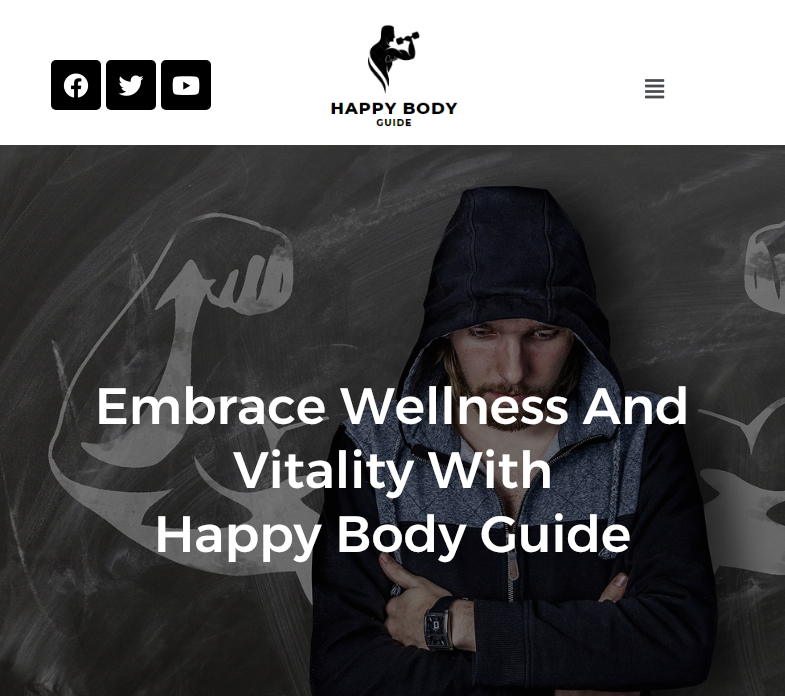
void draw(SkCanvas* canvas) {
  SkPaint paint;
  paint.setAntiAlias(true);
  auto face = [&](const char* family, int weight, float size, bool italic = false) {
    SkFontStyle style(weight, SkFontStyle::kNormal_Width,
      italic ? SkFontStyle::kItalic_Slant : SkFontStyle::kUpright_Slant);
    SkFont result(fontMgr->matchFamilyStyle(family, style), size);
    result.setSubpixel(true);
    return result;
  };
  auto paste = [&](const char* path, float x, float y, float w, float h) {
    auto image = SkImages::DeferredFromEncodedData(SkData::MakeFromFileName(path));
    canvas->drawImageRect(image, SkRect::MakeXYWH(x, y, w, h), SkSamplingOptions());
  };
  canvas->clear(0xffffffff);
  paint.setColor(0xff000000);
  canvas->drawRoundRect(SkRect::MakeXYWH(51, 60, 50, 50), 5, 5, paint);
  paste("img/1.png", 63, 73, 26, 25);
  canvas->drawRoundRect(SkRect::MakeXYWH(106, 60, 50, 50), 5, 5, paint);
  paste("img/2.png", 118, 75, 26, 21);
  canvas->drawRoundRect(SkRect::MakeXYWH(161, 60, 50, 50), 5, 5, paint);
  paste("img/3.png", 172, 76, 28, 19);
  paste("img/4.png", 331, 24, 127, 103);
  paste("img/5.png", 645, 79, 20, 20);
  paste("img/6.png", 0, 145, 785, 551);
  auto f0 = face("Alexandria", 500, 51);
  paint.setColor(0xffffffff);
  {
    const struct { const char* s; float x, y; } items[] = {
      {"Embrace Wellness And", 95, 424},
      {"Vitality With", 233, 488},
      {"Happy Body Guide", 154, 552},
    };
    for (auto [s, x, y] : items) {
      canvas->drawString(s, x, y, f0, paint);
    }
  }
}
